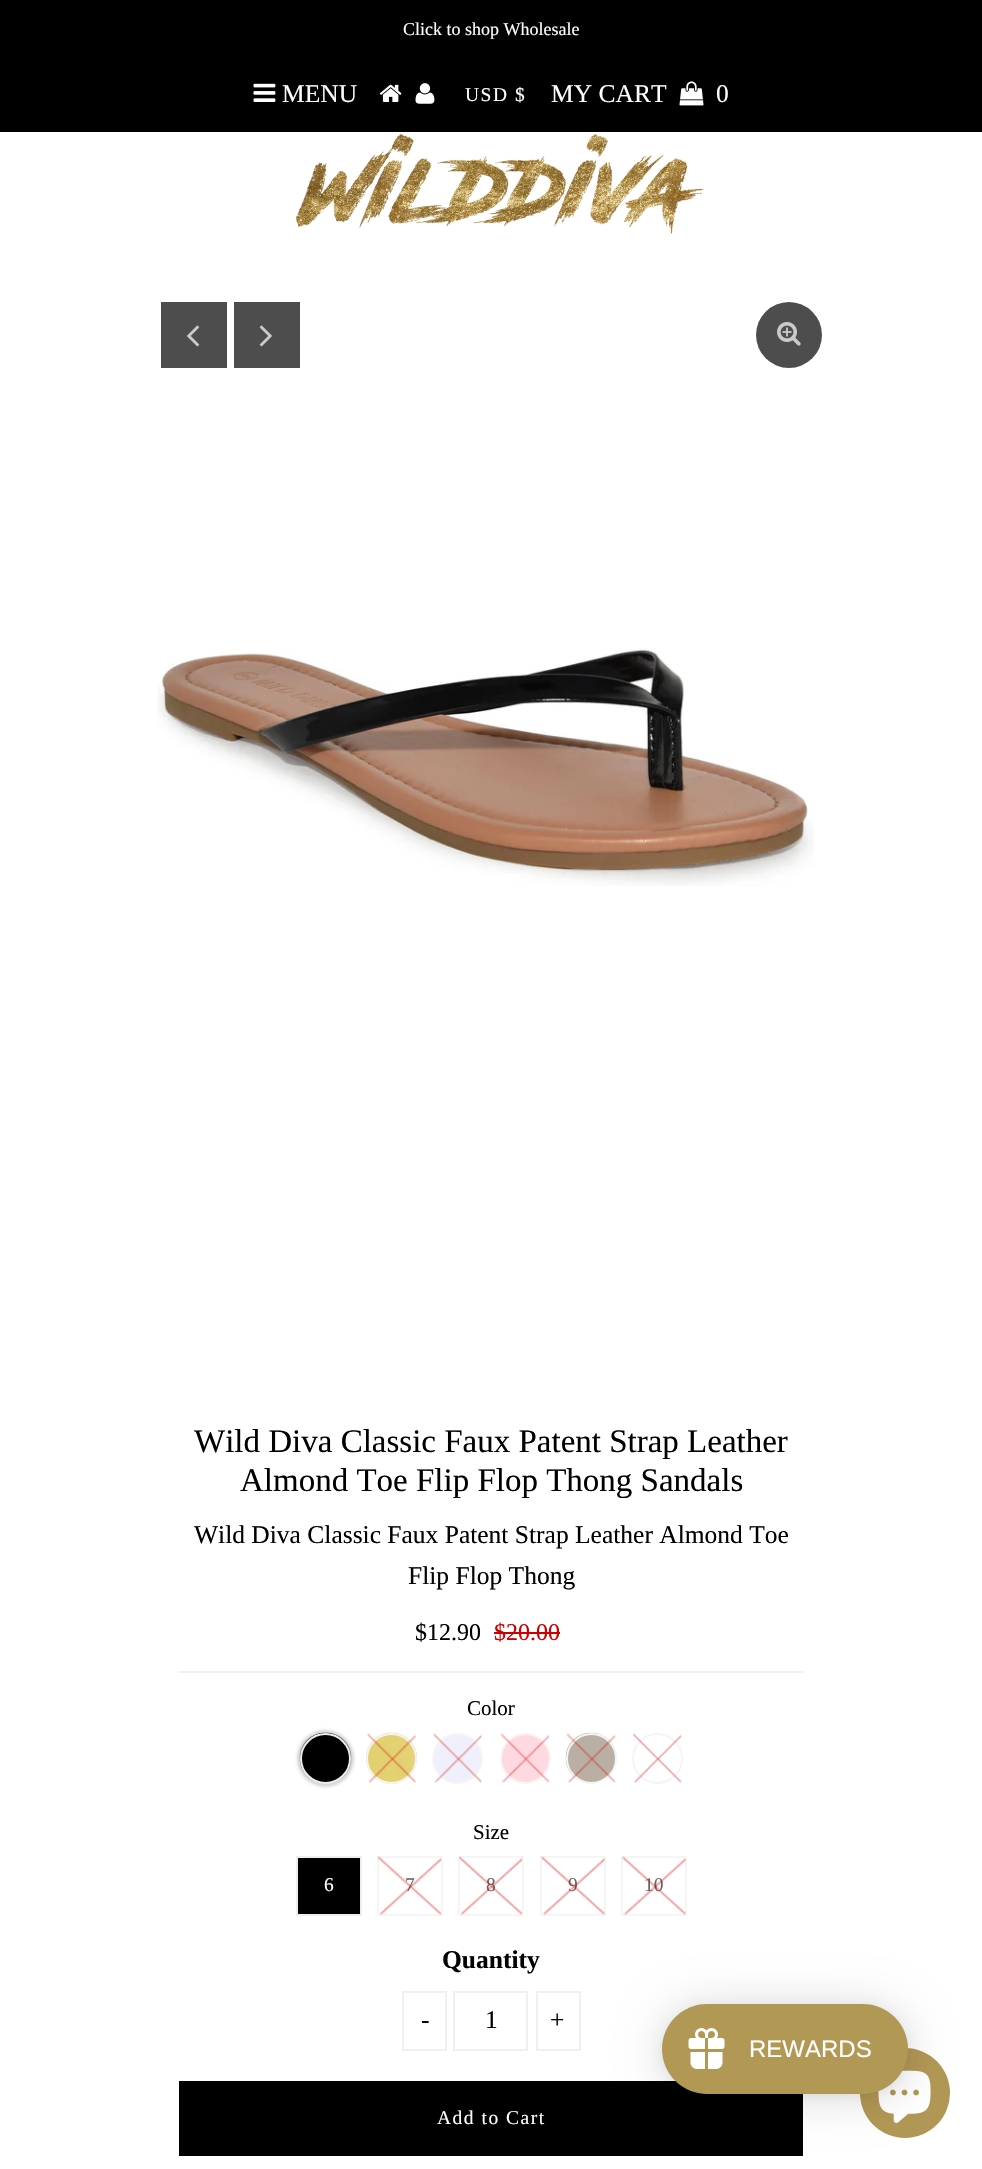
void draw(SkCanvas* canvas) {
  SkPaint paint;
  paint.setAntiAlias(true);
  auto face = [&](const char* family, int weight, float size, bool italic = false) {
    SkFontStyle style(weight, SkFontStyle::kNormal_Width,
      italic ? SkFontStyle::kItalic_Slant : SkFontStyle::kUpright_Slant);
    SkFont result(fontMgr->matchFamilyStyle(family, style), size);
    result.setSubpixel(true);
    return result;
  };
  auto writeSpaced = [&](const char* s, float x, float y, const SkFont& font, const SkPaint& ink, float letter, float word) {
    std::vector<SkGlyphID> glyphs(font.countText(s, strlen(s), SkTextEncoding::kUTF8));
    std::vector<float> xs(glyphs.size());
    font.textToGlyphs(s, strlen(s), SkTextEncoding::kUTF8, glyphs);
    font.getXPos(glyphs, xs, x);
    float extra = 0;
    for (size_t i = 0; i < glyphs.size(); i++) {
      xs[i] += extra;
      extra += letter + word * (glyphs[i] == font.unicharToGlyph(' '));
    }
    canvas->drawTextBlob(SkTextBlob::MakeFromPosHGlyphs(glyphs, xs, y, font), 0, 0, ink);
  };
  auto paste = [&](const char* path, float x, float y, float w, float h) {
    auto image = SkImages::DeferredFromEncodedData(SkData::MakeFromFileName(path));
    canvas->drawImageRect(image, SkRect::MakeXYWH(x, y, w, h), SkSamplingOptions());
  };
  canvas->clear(0xffffffff);
  paint.setColor(0xff000000);
  canvas->drawRect(SkRect::MakeXYWH(0, 0, 982, 132), paint);
  paste("img/1.png", 253, 83, 23, 19);
  paste("img/2.png", 379, 84, 23, 18);
  paste("img/3.png", 415, 83, 20, 21);
  paste("img/4.png", 679, 81, 25, 25);
  paste("img/5.png", 295, 133, 409, 101);
  paint.setColor(0xff4d4d4d);
  canvas->drawCircle(789, 335, 33, paint);
  paste("img/6.png", 777, 322, 24, 24);
  paste("img/7.png", 157, 648, 657, 238);
  canvas->drawRect(SkRect::MakeXYWH(161, 302, 66, 66), paint);
  paste("img/8.png", 187, 325, 13, 22);
  canvas->drawRect(SkRect::MakeXYWH(234, 302, 66, 66), paint);
  paste("img/9.png", 259, 325, 13, 22);
  paint.setColor(0xfff0f0f0);
  canvas->drawRect(SkRect::MakeXYWH(179, 1671, 624, 2), paint);
  paint.setColor(0xffcc0000);
  canvas->drawRect(SkRect::MakeXYWH(494, 1632, 66, 2), paint);
  paint.setColor(0xffd6d6d6);
  paint.setMaskFilter(SkMaskFilter::MakeBlur(kNormal_SkBlurStyle, 1.5f));
  canvas->drawRoundRect(SkRect::MakeXYWH(297, 1730, 57, 57), 28.5f, 28.5f, paint);
  paint.setMaskFilter(nullptr);
  paste("img/10.png", 299, 1732, 53, 52);
  paint.setStroke(true);
  paint.setStrokeWidth(2);
  paint.setColor(0xffeeeeee);
  canvas->drawCircle(325.5f, 1758.5f, 24.5f, paint);
  paint.setStroke(false);
  paint.setColor(0xffffe766);
  canvas->drawCircle(391.5f, 1758.5f, 25.5f, paint);
  paste("img/11.png", 366, 1732, 51, 52);
  paint.setStroke(true);
  paint.setColor(0xfff5f5f5);
  canvas->drawCircle(391.5f, 1758.5f, 24.5f, paint);
  paste("img/12.png", 367, 1733, 49, 50);
  paint.setStroke(false);
  paint.setColor(0xfff0f0fc);
  canvas->drawCircle(457.5f, 1758.5f, 24.5f, paint);
  paint.setStroke(true);
  paint.setColor(0xfff5f5f5);
  canvas->drawCircle(457.5f, 1758.5f, 24.5f, paint);
  paste("img/13.png", 433, 1733, 49, 50);
  paint.setStroke(false);
  paint.setColor(0xffffd9e0);
  canvas->drawCircle(525.5f, 1758.5f, 24.5f, paint);
  paint.setStroke(true);
  paint.setColor(0xfff5f5f5);
  canvas->drawCircle(525.5f, 1758.5f, 24.5f, paint);
  paste("img/14.png", 500, 1733, 50, 50);
  paste("img/15.png", 565, 1732, 52, 52);
  canvas->drawCircle(591.5f, 1758.5f, 24.5f, paint);
  paste("img/16.png", 566, 1733, 50, 50);
  canvas->drawCircle(657.5f, 1758.5f, 24.5f, paint);
  paste("img/17.png", 633, 1733, 48, 50);
  paint.setStroke(false);
  paint.setColor(0xff000000);
  canvas->drawRect(SkRect::MakeXYWH(297, 1857, 64, 58), paint);
  paint.setStroke(true);
  paint.setColor(0xffeeeeee);
  canvas->drawRect(SkRect::MakeXYWH(297, 1857, 64, 58), paint);
  paint.setColor(0xfff5f5f5);
  canvas->drawRect(SkRect::MakeXYWH(378, 1857, 64, 58), paint);
  canvas->drawRect(SkRect::MakeXYWH(459, 1857, 64, 58), paint);
  canvas->drawRect(SkRect::MakeXYWH(541, 1857, 64, 58), paint);
  canvas->drawRect(SkRect::MakeXYWH(622, 1857, 64, 58), paint);
  paint.setColor(0xfff0f0f0);
  canvas->drawRect(SkRect::MakeXYWH(403, 1992, 43, 58), paint);
  canvas->drawRect(SkRect::MakeXYWH(454, 1992, 73, 58), paint);
  canvas->drawRect(SkRect::MakeXYWH(537, 1992, 43, 58), paint);
  paint.setStroke(false);
  paint.setColor(0xff000000);
  canvas->drawRect(SkRect::MakeXYWH(179, 2081, 624, 75), paint);
  paint.setColor(0xffb29855);
  canvas->drawCircle(905, 2093, 45, paint);
  paste("img/23.png", 878, 2070, 53, 53);
  paint.setColor(0x26000000);
  paint.setMaskFilter(SkMaskFilter::MakeBlur(kNormal_SkBlurStyle, 22.5f));
  canvas->drawRoundRect(SkRect::MakeXYWH(662, 2007, 246, 90), 45, 45, paint);
  paint.setMaskFilter(nullptr);
  paint.setColor(0x0d000000);
  paint.setMaskFilter(SkMaskFilter::MakeBlur(kNormal_SkBlurStyle, 4.5f));
  canvas->drawRoundRect(SkRect::MakeXYWH(662, 2006, 246, 90), 45, 45, paint);
  paint.setMaskFilter(nullptr);
  paint.setColor(0xffb29855);
  canvas->drawRoundRect(SkRect::MakeXYWH(662, 2004, 246, 90), 45, 45, paint);
  paste("img/22.png", 688, 2028, 37, 41);
  auto f0 = face("Liberation Serif", 400, 18);
  paint.setColor(0xffffffff);
  canvas->drawString("Click to shop Wholesale", 403, 35, f0, paint);
  auto f1 = face("Liberation Serif", 400, 25.5f);
  canvas->drawString("MENU", 282, 102, f1, paint);
  auto f2 = face("Liberation Serif", 400, 19.5f);
  writeSpaced("USD $", 465, 101, f2, paint, 1.5f, 0);
  canvas->drawString("MY CART", 551, 102, f1, paint);
  canvas->drawString("0", 716, 102, f1, paint);
  auto f3 = face("Liberation Serif", 400, 33);
  paint.setColor(0xff000000);
  canvas->drawString("Wild Diva Classic Faux Patent Strap Leather", 194, 1452, f3, paint);
  canvas->drawString("Almond Toe Flip Flop Thong Sandals", 240, 1491, f3, paint);
  canvas->drawString("Wild Diva Classic Faux Patent Strap Leather Almond Toe", 194, 1543, f1, paint);
  canvas->drawString("Flip Flop Thong", 408, 1584, f1, paint);
  auto f4 = face("Liberation Serif", 400, 24);
  canvas->drawString("$12.90", 415, 1640, f4, paint);
  paint.setColor(0xffcc0000);
  canvas->drawString("$20.00", 494, 1640, f4, paint);
  auto f5 = face("Liberation Serif", 400, 21);
  paint.setColor(0xff000000);
  canvas->drawString("Color", 467, 1715, f5, paint);
  canvas->drawString("Size", 473, 1839, f5, paint);
  paint.setColor(0xffffffff);
  canvas->drawString("6", 324, 1891, f2, paint);
  paint.setColor(0xff666666);
  canvas->drawString("7", 405, 1891, f2, paint);
  paste("img/18.png", 378, 1856, 63, 59);
  canvas->drawString("8", 486, 1891, f2, paint);
  paste("img/19.png", 459, 1856, 63, 59);
  canvas->drawString("9", 568, 1891, f2, paint);
  paste("img/20.png", 541, 1856, 64, 59);
  canvas->drawString("10", 644, 1891, f2, paint);
  paste("img/21.png", 622, 1856, 64, 59);
  auto f6 = face("Liberation Serif", 700, 25.5f);
  paint.setColor(0xff000000);
  canvas->drawString("Quantity", 442, 1968, f6, paint);
  {
    const struct { const char* s; float x, y; } items[] = {
      {"-", 421, 2028},
      {"1", 485, 2028},
      {"+", 550, 2028},
    };
    for (auto [s, x, y] : items) {
      canvas->drawString(s, x, y, f1, paint);
    }
  }
  paint.setColor(0xffffffff);
  writeSpaced("Add to Cart", 437, 2124, f2, paint, 1.5f, 0);
  auto f7 = face("Liberation Sans", 400, 24);
  canvas->drawString("REWARDS", 749, 2057, f7, paint);
}
